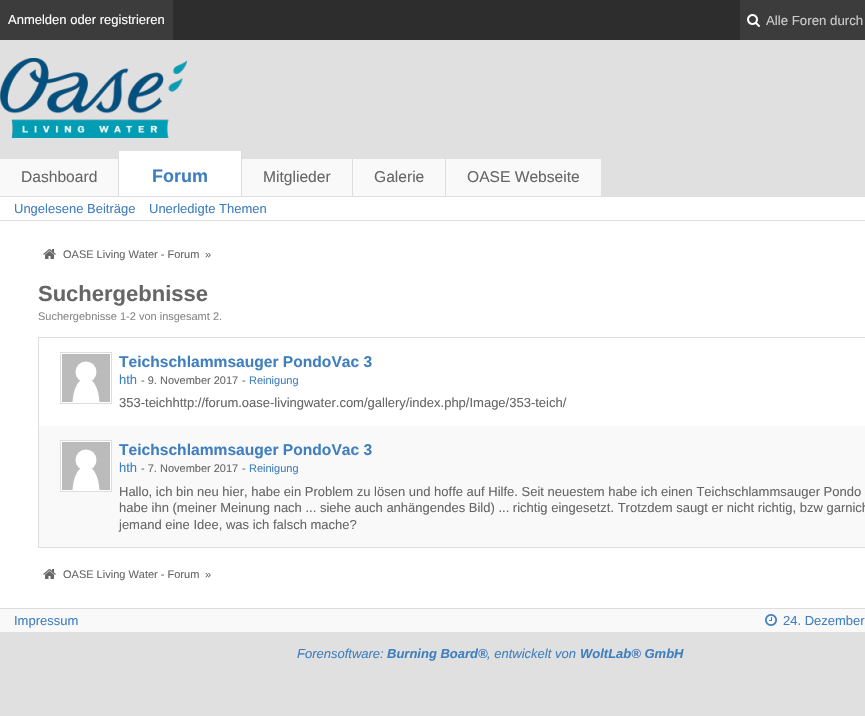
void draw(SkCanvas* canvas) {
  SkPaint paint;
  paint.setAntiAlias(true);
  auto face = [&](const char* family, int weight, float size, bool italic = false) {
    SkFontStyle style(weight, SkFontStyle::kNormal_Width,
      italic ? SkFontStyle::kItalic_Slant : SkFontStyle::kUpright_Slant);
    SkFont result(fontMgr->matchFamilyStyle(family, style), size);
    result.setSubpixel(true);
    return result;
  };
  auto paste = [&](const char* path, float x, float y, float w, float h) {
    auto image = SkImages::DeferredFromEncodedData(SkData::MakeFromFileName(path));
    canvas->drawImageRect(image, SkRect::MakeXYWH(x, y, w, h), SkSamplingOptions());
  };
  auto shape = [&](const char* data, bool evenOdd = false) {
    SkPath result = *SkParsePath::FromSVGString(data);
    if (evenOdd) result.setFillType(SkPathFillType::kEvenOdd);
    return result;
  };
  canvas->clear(0xffe0e0e0);
  {
    const struct { float x, y, w, h; SkColor color; } items[] = {
      {173, 0, 567, 40, 0xff2d2d2d},
      {0, 0, 173, 40, 0xff3c3c3c},
      {740, 0, 125, 40, 0xff3c3c3c},
    };
    for (auto [x, y, w, h, color] : items) {
      paint.setColor(color);
      canvas->drawRect(SkRect::MakeXYWH(x, y, w, h), paint);
    }
  }
  paste("img/1.png", 747, 14, 13, 13);
  paste("img/2.png", 0, 58, 187, 80);
  {
    const struct { float x, y, w, h; SkColor color; } items[] = {
      {0, 159, 601, 37, 0xfff9f9f9},
      {118, 158, 1, 38, 0xffdddddd},
      {119, 151, 122, 45, 0xffffffff},
      {241, 151, 1, 45, 0xffdddddd},
      {352, 158, 1, 38, 0xffdddddd},
      {445, 158, 1, 38, 0xffdddddd},
      {0, 197, 865, 23, 0xffffffff},
      {0, 196, 865, 1, 0xffdddddd},
      {0, 220, 865, 1, 0xffdddddd},
      {0, 221, 865, 387, 0xffffffff},
    };
    for (auto [x, y, w, h, color] : items) {
      paint.setColor(color);
      canvas->drawRect(SkRect::MakeXYWH(x, y, w, h), paint);
    }
  }
  paste("img/3.png", 43, 249, 13, 10);
  paint.setStroke(true);
  paint.setStrokeWidth(1);
  paint.setColor(0xffdddddd);
  canvas->drawRect(SkRect::MakeXYWH(38.5f, 337.5f, 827, 210), paint);
  canvas->drawRect(SkRect::MakeXYWH(60.5f, 352.5f, 51, 51), paint);
  paint.setStroke(false);
  paint.setColor(0xffbbbbbb);
  canvas->drawRect(SkRect::MakeXYWH(62, 354, 48, 48), paint);
  paint.setColor(0xffffffff);
  canvas->drawPath(shape("M72.5 402C74.5 370 97.5 370 99.5 402"), paint);
  canvas->drawCircle(86, 372, 10.5f, paint);
  paint.setColor(0xfff9f9f9);
  canvas->drawRect(SkRect::MakeXYWH(39, 426, 826, 121), paint);
  paint.setColor(0xffffffff);
  canvas->drawRect(SkRect::MakeXYWH(60.5f, 440.5f, 51, 51), paint);
  paint.setStroke(true);
  paint.setColor(0xffdddddd);
  canvas->drawRect(SkRect::MakeXYWH(60.5f, 440.5f, 51, 51), paint);
  paint.setStroke(false);
  paint.setColor(0xffbbbbbb);
  canvas->drawRect(SkRect::MakeXYWH(62, 442, 48, 48), paint);
  paint.setColor(0xffffffff);
  canvas->drawPath(shape("M72.5 490C74.5 458 97.5 458 99.5 490"), paint);
  canvas->drawCircle(86, 460, 10.5f, paint);
  paste("img/3.png", 43, 569, 13, 10);
  paint.setColor(0xfff9f9f9);
  canvas->drawRect(SkRect::MakeXYWH(0, 609, 865, 23), paint);
  paint.setColor(0xffdddddd);
  canvas->drawRect(SkRect::MakeXYWH(0, 608, 865, 1), paint);
  paste("img/4.png", 765, 614, 12, 12);
  auto f0 = face("Liberation Sans", 400, 13);
  paint.setColor(0xffffffff);
  canvas->drawString("Anmelden oder registrieren", 8, 24, f0, paint);
  auto f1 = face("Liberation Sans", 400, 13.25f);
  paint.setColor(0xffcccccc);
  canvas->drawString("Alle Foren durch", 766, 25, f1, paint);
  auto f2 = face("Liberation Sans", 400, 15.6f);
  paint.setColor(0xff666666);
  canvas->drawString("Dashboard", 21, 182, f2, paint);
  auto f3 = face("Liberation Sans", 700, 18);
  paint.setColor(0xff3f7fbf);
  canvas->drawString("Forum", 152, 182, f3, paint);
  paint.setColor(0xff666666);
  {
    const struct { const char* s; float x, y; } items[] = {
      {"Mitglieder", 263, 182},
      {"Galerie", 374, 182},
      {"OASE Webseite", 467, 182},
    };
    for (auto [s, x, y] : items) {
      canvas->drawString(s, x, y, f2, paint);
    }
  }
  paint.setColor(0xff3f7fbf);
  canvas->drawString("Ungelesene Beiträge", 14, 213, f0, paint);
  canvas->drawString("Unerledigte Themen", 149, 213, f0, paint);
  auto f4 = face("Liberation Sans", 400, 11);
  paint.setColor(0xff666666);
  canvas->drawString("OASE Living Water - Forum", 63, 258, f4, paint);
  canvas->drawString("»", 205, 258, f4, paint);
  auto f5 = face("Liberation Sans", 700, 22);
  canvas->drawString("Suchergebnisse", 38, 301, f5, paint);
  paint.setColor(0xff888888);
  canvas->drawString("Suchergebnisse 1-2 von insgesamt 2.", 38, 320, f4, paint);
  auto f6 = face("Liberation Sans", 700, 15.6f);
  paint.setColor(0xff3f7fbf);
  canvas->drawString("Teichschlammsauger PondoVac 3", 119, 367, f6, paint);
  canvas->drawString("hth", 119, 384, f0, paint);
  paint.setColor(0xff666666);
  canvas->drawString("- 9. November 2017", 141, 384, f4, paint);
  canvas->drawString("-", 242, 384, f4, paint);
  paint.setColor(0xff3f7fbf);
  canvas->drawString("Reinigung", 249, 384, f4, paint);
  paint.setColor(0xff666666);
  canvas->drawString("353-teichhttp://forum.oase-livingwater.com/gallery/index.php/Image/353-teich/", 119, 407, f0, paint);
  paint.setColor(0xff3f7fbf);
  canvas->drawString("Teichschlammsauger PondoVac 3", 119, 455, f6, paint);
  canvas->drawString("hth", 119, 472, f0, paint);
  paint.setColor(0xff666666);
  canvas->drawString("- 7. November 2017", 141, 472, f4, paint);
  canvas->drawString("-", 242, 472, f4, paint);
  paint.setColor(0xff3f7fbf);
  canvas->drawString("Reinigung", 249, 472, f4, paint);
  paint.setColor(0xff666666);
  {
    const struct { const char* s; float x, y; } items[] = {
      {"Hallo, ich bin neu hier, habe ein Problem zu lösen und hoffe auf Hilfe. Seit neuestem habe ich einen Teichschlammsauger Pondo", 119, 496},
      {"habe ihn (meiner Meinung nach ... siehe auch anhängendes Bild) ... richtig eingesetzt. Trotzdem saugt er nicht richtig, bzw garnich", 119, 512},
      {"jemand eine Idee, was ich falsch mache?", 119, 529},
    };
    for (auto [s, x, y] : items) {
      canvas->drawString(s, x, y, f0, paint);
    }
  }
  canvas->drawString("OASE Living Water - Forum", 63, 578, f4, paint);
  canvas->drawString("»", 205, 578, f4, paint);
  paint.setColor(0xff3f7fbf);
  canvas->drawString("Impressum", 14, 625, f0, paint);
  canvas->drawString("24. Dezember", 783, 625, f0, paint);
  auto f7 = face("Liberation Sans", 400, 13, true);
  canvas->drawString("Forensoftware:", 297, 658, f7, paint);
  auto f8 = face("Liberation Sans", 700, 13, true);
  canvas->drawString("Burning Board®", 387, 658, f8, paint);
  canvas->drawString(", entwickelt von", 487, 658, f7, paint);
  canvas->drawString("WoltLab® GmbH", 580, 658, f8, paint);
}
